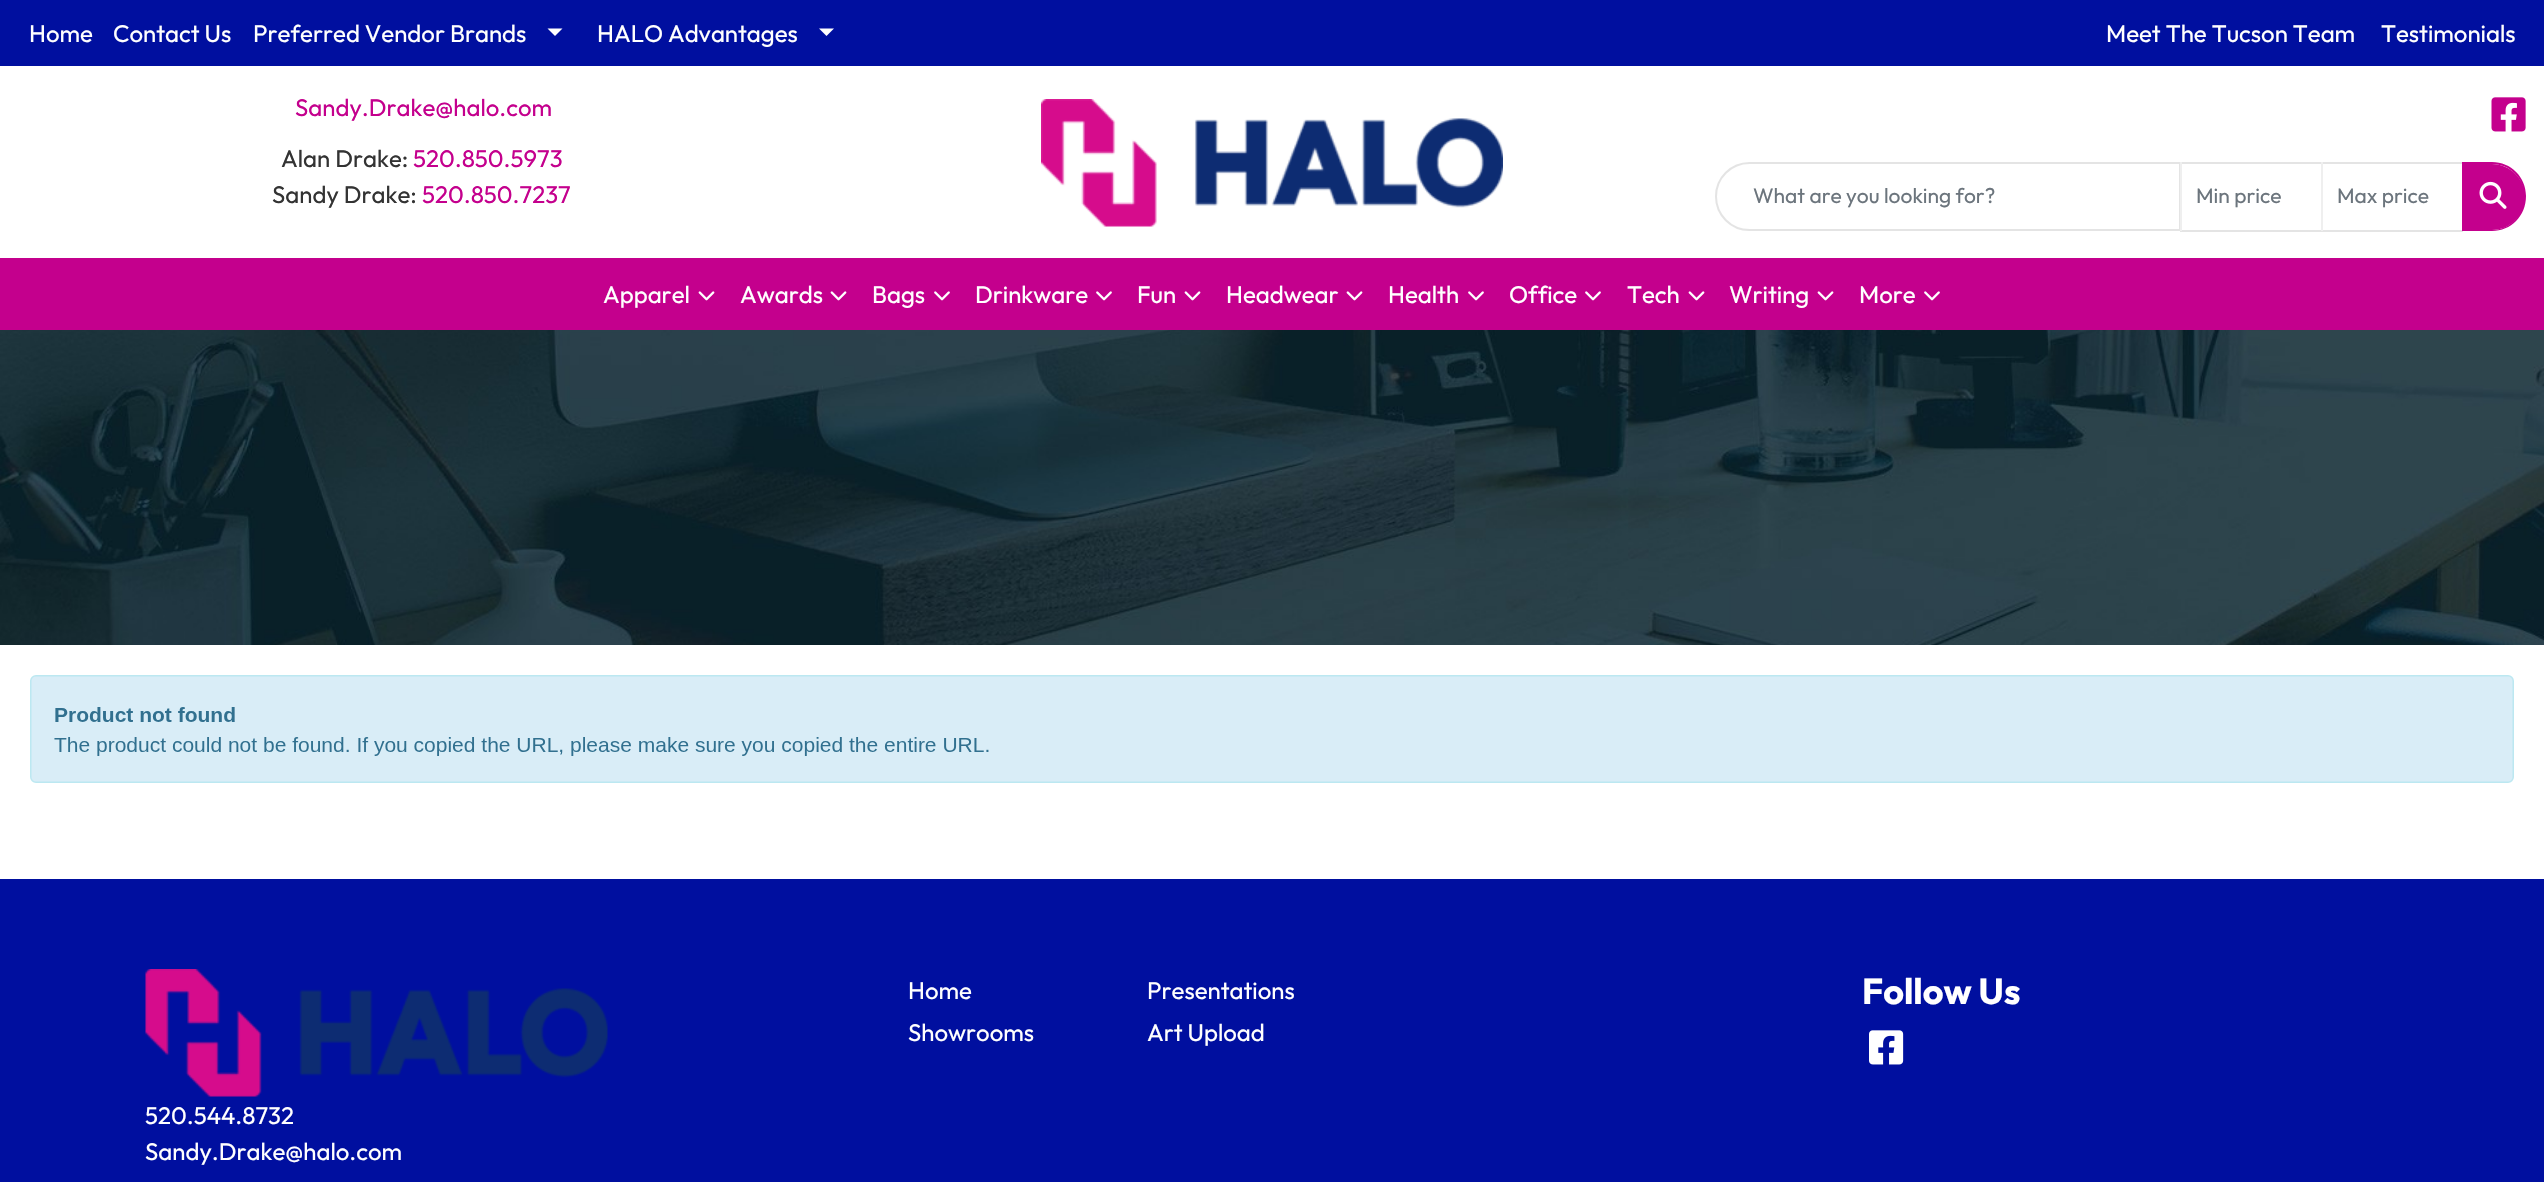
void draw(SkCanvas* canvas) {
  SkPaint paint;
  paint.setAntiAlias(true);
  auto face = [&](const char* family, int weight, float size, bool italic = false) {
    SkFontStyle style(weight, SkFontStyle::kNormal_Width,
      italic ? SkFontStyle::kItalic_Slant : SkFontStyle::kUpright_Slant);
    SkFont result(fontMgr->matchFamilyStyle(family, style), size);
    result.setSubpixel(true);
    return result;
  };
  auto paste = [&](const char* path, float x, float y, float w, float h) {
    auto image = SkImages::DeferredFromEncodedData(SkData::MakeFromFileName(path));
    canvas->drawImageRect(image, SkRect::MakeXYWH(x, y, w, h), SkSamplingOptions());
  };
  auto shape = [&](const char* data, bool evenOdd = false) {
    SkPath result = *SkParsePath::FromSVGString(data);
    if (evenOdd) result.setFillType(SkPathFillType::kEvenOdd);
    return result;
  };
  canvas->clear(0xffffffff);
  paint.setColor(0xff000f9f);
  canvas->drawRect(SkRect::MakeXYWH(0, 0, 2544, 66), paint);
  paint.setColor(0xffffffff);
  canvas->drawPath(shape("M547.5 28.5H562.5L555 36Z"), paint);
  canvas->drawPath(shape("M819 28.5H834L826.5 36Z"), paint);
  paste("img/1.png", 1041, 99, 462, 128);
  paste("img/2.png", 2491, 97, 35, 35);
  paint.setStroke(true);
  paint.setStrokeWidth(2);
  paint.setColor(0xffe4e4e4);
  canvas->drawPath(shape("M1749.5 163H2180V230H1749.5C1731 230 1716 215 1716 196.5C1716 178 1731 163 1749.5 163Z"), paint);
  paint.setStroke(false);
  {
    const struct { float x, y, w, h; SkColor color; } items[] = {
      {2180, 162, 283, 2, 0xffe4e4e4},
      {2180, 230, 283, 2, 0xffe4e4e4},
      {2180, 162, 2, 69, 0xffefefef},
      {2321, 162, 2, 69, 0xffefefef},
    };
    for (auto [x, y, w, h, color] : items) {
      paint.setColor(color);
      canvas->drawRect(SkRect::MakeXYWH(x, y, w, h), paint);
    }
  }
  paint.setColor(0xffc4008d);
  canvas->drawPath(shape("M2462 164H2492C2510 164 2525 179 2525 197C2525 215 2510 230 2492 230H2462Z"), paint);
  canvas->drawPath(shape("M2462 162H2492C2511 162 2526 177 2526 196C2526 216 2511 231 2492 231H2462ZM2462 164H2492C2510 164 2524 178 2524 196C2524 215 2510 230 2492 230H2462Z", true), paint);
  paste("img/3.png", 2479, 181, 28, 28);
  canvas->drawRect(SkRect::MakeXYWH(0, 258, 2544, 72), paint);
  paste("img/4.png", 698, 291, 17, 10);
  paste("img/4.png", 830, 291, 17, 10);
  paste("img/5.png", 934, 291, 16, 10);
  paste("img/5.png", 1096, 291, 16, 10);
  paste("img/4.png", 1184, 291, 17, 10);
  paste("img/4.png", 1346, 291, 17, 10);
  paste("img/5.png", 1468, 291, 16, 10);
  paste("img/5.png", 1585, 291, 16, 10);
  paste("img/4.png", 1688, 291, 17, 10);
  paste("img/4.png", 1817, 291, 17, 10);
  paste("img/5.png", 1924, 291, 16, 10);
  paste("img/6.png", 0, 330, 2544, 315);
  paste("img/7.png", 30, 675, 2484, 108);
  paint.setColor(0xff000f9f);
  canvas->drawRect(SkRect::MakeXYWH(0, 879, 2544, 303), paint);
  paste("img/8.png", 1869, 1030, 35, 35);
  paste("img/9.png", 145, 969, 463, 128);
  auto f0 = face("Outfit", 400, 24);
  paint.setColor(0xffffffff);
  {
    const struct { const char* s; float x, y; } items[] = {
      {"Home", 29, 42},
      {"Contact Us", 113, 42},
      {"Preferred Vendor Brands", 253, 42},
      {"HALO Advantages", 597, 42},
      {"Meet The Tucson Team", 2106, 42},
      {"Testimonials", 2381, 42},
    };
    for (auto [s, x, y] : items) {
      canvas->drawString(s, x, y, f0, paint);
    }
  }
  paint.setColor(0xffc4008d);
  canvas->drawString("Sandy.Drake@halo.com", 295, 116, f0, paint);
  paint.setColor(0xff333333);
  canvas->drawString("Alan Drake:", 281, 167, f0, paint);
  paint.setColor(0xffc4008d);
  canvas->drawString("520.850.5973", 413, 167, f0, paint);
  paint.setColor(0xff333333);
  canvas->drawString("Sandy Drake:", 272, 203, f0, paint);
  paint.setColor(0xffc4008d);
  canvas->drawString("520.850.7237", 422, 203, f0, paint);
  auto f1 = face("Outfit", 400, 21);
  paint.setColor(0xff6c757d);
  {
    const struct { const char* s; float x, y; } items[] = {
      {"What are you looking for?", 1753, 203},
      {"Min price", 2196, 203},
      {"Max price", 2337, 203},
    };
    for (auto [s, x, y] : items) {
      canvas->drawString(s, x, y, f1, paint);
    }
  }
  paint.setColor(0xffffffff);
  {
    const struct { const char* s; float x, y; } items[] = {
      {"Apparel", 603, 303},
      {"Awards", 740, 303},
      {"Bags", 872, 303},
      {"Drinkware", 975, 303},
      {"Fun", 1137, 303},
      {"Headwear", 1226, 303},
      {"Health", 1388, 303},
      {"Office", 1509, 303},
      {"Tech", 1627, 303},
      {"Writing", 1729, 303},
      {"More", 1859, 303},
      {"Home", 908, 999},
      {"Showrooms", 908, 1041},
      {"Presentations", 1147, 999},
      {"Art Upload", 1147, 1041},
    };
    for (auto [s, x, y] : items) {
      canvas->drawString(s, x, y, f0, paint);
    }
  }
  auto f2 = face("Outfit", 700, 36);
  canvas->drawString("Follow Us", 1862, 1004, f2, paint);
  canvas->drawString("520.544.8732", 145, 1124, f0, paint);
  canvas->drawString("Sandy.Drake@halo.com", 145, 1160, f0, paint);
}
